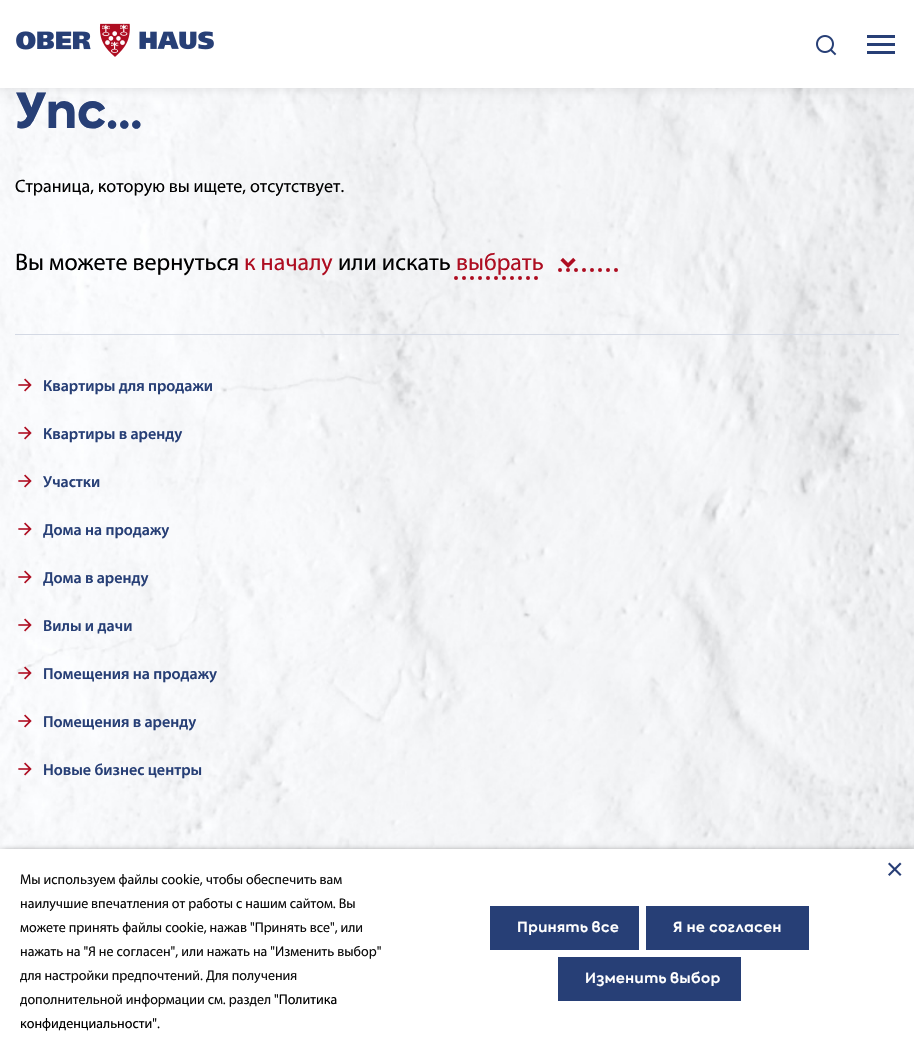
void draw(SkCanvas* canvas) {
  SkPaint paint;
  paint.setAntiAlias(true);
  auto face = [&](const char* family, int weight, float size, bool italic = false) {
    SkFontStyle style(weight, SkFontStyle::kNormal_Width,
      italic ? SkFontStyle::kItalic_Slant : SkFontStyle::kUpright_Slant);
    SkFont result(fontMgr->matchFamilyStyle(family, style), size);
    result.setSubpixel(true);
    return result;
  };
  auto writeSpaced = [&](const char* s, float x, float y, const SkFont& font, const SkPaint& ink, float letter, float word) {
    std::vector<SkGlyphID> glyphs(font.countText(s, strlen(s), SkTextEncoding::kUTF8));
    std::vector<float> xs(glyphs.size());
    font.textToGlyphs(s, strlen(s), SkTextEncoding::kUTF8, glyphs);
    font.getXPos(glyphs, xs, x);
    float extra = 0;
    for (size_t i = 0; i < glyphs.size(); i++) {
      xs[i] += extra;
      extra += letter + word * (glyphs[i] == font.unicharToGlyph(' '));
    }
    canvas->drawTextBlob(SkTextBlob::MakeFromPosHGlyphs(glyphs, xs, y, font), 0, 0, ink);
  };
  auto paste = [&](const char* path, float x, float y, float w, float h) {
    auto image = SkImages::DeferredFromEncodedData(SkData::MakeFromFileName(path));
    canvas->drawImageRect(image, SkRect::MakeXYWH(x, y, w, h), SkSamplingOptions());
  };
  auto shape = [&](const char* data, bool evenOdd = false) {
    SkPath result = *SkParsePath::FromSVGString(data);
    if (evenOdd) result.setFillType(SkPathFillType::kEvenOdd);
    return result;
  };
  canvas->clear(0xffffffff);
  paste("img/3.png", 0, 88, 914, 761);
  paint.setColor(0x1a000000);
  paint.setMaskFilter(SkMaskFilter::MakeBlur(kNormal_SkBlurStyle, 5));
  canvas->drawRect(SkRect::MakeXYWH(0, 1, 914, 88), paint);
  paint.setMaskFilter(nullptr);
  paint.setColor(0xffffffff);
  canvas->drawRect(SkRect::MakeXYWH(0, 0, 914, 88), paint);
  paste("img/1.png", 16, 23, 198, 34);
  paste("img/2.png", 816, 35, 21, 21);
  {
    const struct { float x, y, w, h; SkColor color; } items[] = {
      {867, 43, 28, 3, 0xff273f76},
      {867, 35, 28, 3, 0xff273f76},
      {867, 51, 28, 3, 0xff273f76},
    };
    for (auto [x, y, w, h, color] : items) {
      paint.setColor(color);
      canvas->drawRect(SkRect::MakeXYWH(x, y, w, h), paint);
    }
  }
  paint.setStroke(true);
  paint.setStrokeWidth(4);
  paint.setStrokeCap(SkPaint::kRound_Cap);
  paint.setColor(0xffae0d21);
  paint.setPathEffect(SkDashPathEffect::Make({{0, 8}}, 0));
  canvas->drawPath(shape("M456 278H544"), paint);
  paint.setPathEffect(nullptr);
  paint.setPathEffect(SkDashPathEffect::Make({{0, 8}}, 0));
  canvas->drawPath(shape("M560 270H618"), paint);
  paint.setPathEffect(nullptr);
  paste("img/4.png", 560, 257, 16, 11);
  paint.setStroke(false);
  paint.setColor(0xffd4d9e4);
  canvas->drawRect(SkRect::MakeXYWH(15, 334, 884, 1), paint);
  paste("img/5.png", 18, 378, 14, 14);
  paste("img/6.png", 18, 426, 14, 14);
  paste("img/7.png", 18, 474, 14, 14);
  paste("img/8.png", 18, 522, 14, 14);
  paste("img/9.png", 18, 570, 14, 14);
  paste("img/10.png", 18, 618, 14, 14);
  paste("img/11.png", 18, 666, 14, 14);
  paste("img/12.png", 18, 714, 14, 14);
  paste("img/13.png", 18, 762, 14, 14);
  paint.setColor(0xff0c0c0c);
  paint.setMaskFilter(SkMaskFilter::MakeBlur(kNormal_SkBlurStyle, 4));
  canvas->drawRect(SkRect::MakeXYWH(2, 853, 910, 204), paint);
  paint.setMaskFilter(nullptr);
  paint.setColor(0xffffffff);
  canvas->drawRect(SkRect::MakeXYWH(0, 849, 914, 208), paint);
  paint.setColor(0xff273e76);
  canvas->drawPath(shape("M889.5 862.5L901.5 874.5L900 876L888 864Z"), paint);
  canvas->drawPath(shape("M888 874.5L900 862.5L901.5 864L889.5 876Z"), paint);
  {
    const struct { float x, y, w, h; SkColor color; } items[] = {
      {490, 906, 149, 44, 0xff273f76},
      {646, 906, 163, 44, 0xff273f76},
      {558, 957, 183, 44, 0xff273f76},
    };
    for (auto [x, y, w, h, color] : items) {
      paint.setColor(color);
      canvas->drawRect(SkRect::MakeXYWH(x, y, w, h), paint);
    }
  }
  auto f0 = face("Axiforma", 800, 48);
  canvas->drawString("Упс...", 15, 128, f0, paint);
  auto f1 = face("Myriad", 400, 18);
  paint.setColor(0xff000000);
  canvas->drawString("Страница, которую вы ищете, отсутствует.", 15, 192, f1, paint);
  auto f2 = face("Myriad", 400, 24);
  canvas->drawString("Вы можете вернуться", 15, 270, f2, paint);
  paint.setColor(0xffae0d21);
  canvas->drawString("к началу", 244, 270, f2, paint);
  paint.setColor(0xff000000);
  canvas->drawString("или искать", 338, 270, f2, paint);
  paint.setColor(0xffae0d21);
  canvas->drawString("выбрать", 456, 270, f2, paint);
  auto f3 = face("Myriad", 600, 16);
  paint.setColor(0xff273f76);
  {
    const struct { const char* s; float x, y; } items[] = {
      {"Квартиры для продажи", 43, 391},
      {"Квартиры в аренду", 43, 439},
      {"Участки", 43, 487},
      {"Дома на продажу", 43, 535},
      {"Дома в аренду", 43, 583},
      {"Вилы и дачи", 43, 631},
      {"Помещения на продажу", 43, 679},
      {"Помещения в аренду", 43, 727},
      {"Новые бизнес центры", 43, 775},
    };
    for (auto [s, x, y] : items) {
      canvas->drawString(s, x, y, f3, paint);
    }
  }
  auto f4 = face("Myriad", 400, 14);
  paint.setColor(0xff0c0c0c);
  {
    const struct { const char* s; float x, y; } items[] = {
      {"Мы используем файлы cookie, чтобы обеспечить вам", 20, 884},
      {"наилучшие впечатления от работы с нашим сайтом. Вы", 20, 908},
      {"можете принять файлы cookie, нажав \"Принять все\", или", 20, 932},
      {"нажать на \"Я не согласен\", или нажать на \"Изменить выбор\"", 20, 956},
      {"для настройки предпочтений. Для получения", 20, 980},
      {"дополнительной информации см. раздел", 20, 1004},
    };
    for (auto [s, x, y] : items) {
      canvas->drawString(s, x, y, f4, paint);
    }
  }
  paint.setColor(0xff000000);
  canvas->drawString("\"Политика", 274, 1004, f4, paint);
  canvas->drawString("конфиденциальности\".", 20, 1028, f4, paint);
  auto f5 = face("Axiforma", 600, 14);
  paint.setColor(0xffffffff);
  writeSpaced("Принять все", 517, 932, f5, paint, 0.5f, -1);
  writeSpaced("Я не согласен", 673, 932, f5, paint, 0.5f, 0);
  writeSpaced("Изменить выбор", 585, 983, f5, paint, 0.5f, -1);
}
